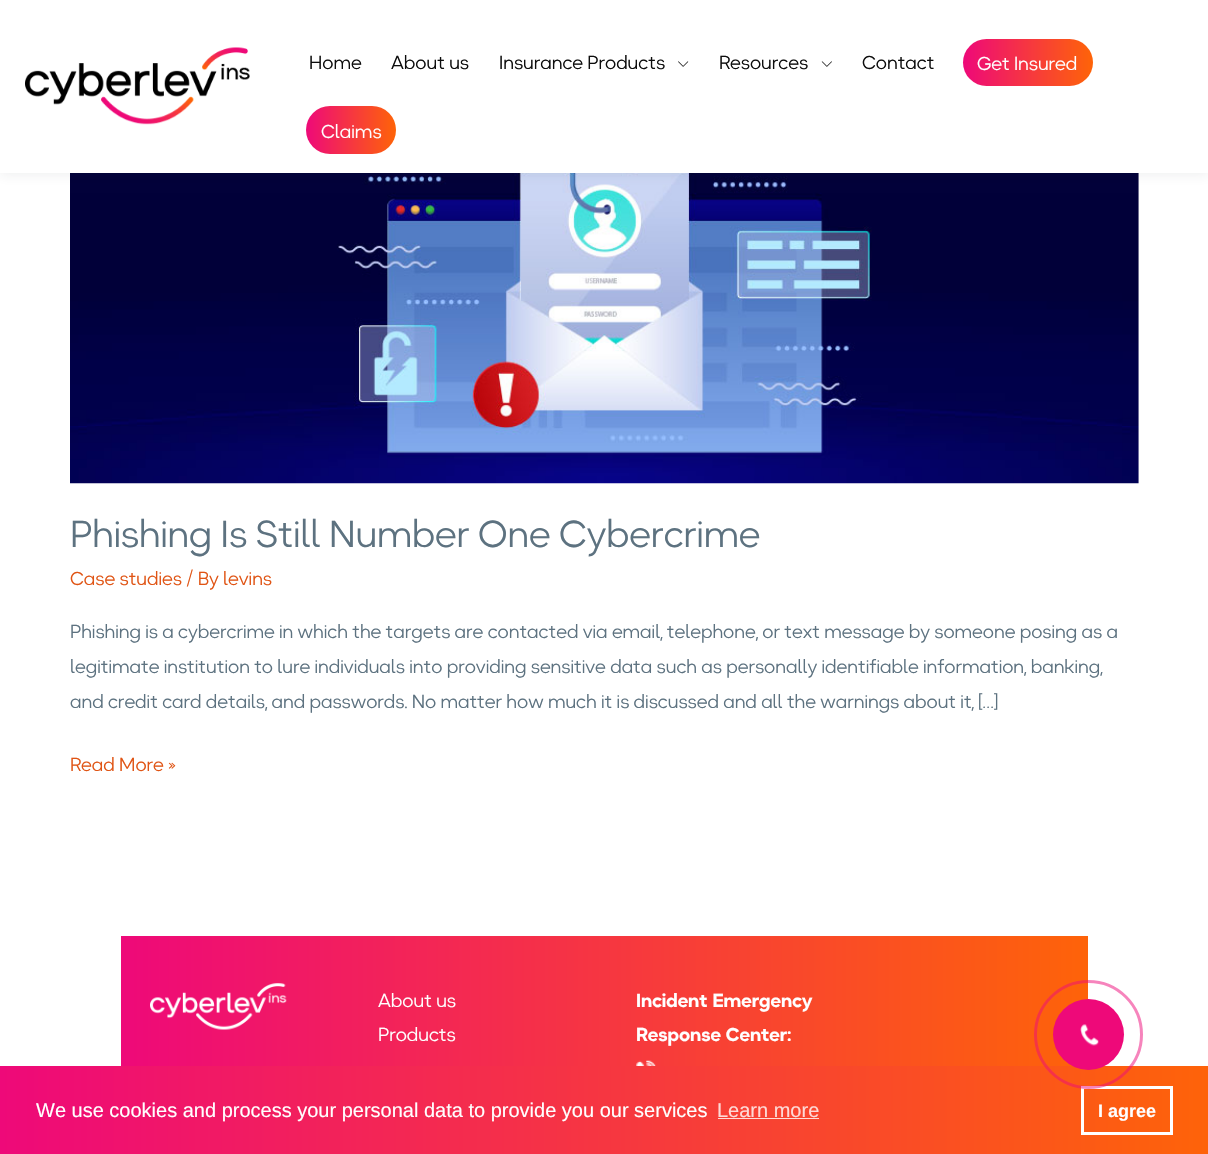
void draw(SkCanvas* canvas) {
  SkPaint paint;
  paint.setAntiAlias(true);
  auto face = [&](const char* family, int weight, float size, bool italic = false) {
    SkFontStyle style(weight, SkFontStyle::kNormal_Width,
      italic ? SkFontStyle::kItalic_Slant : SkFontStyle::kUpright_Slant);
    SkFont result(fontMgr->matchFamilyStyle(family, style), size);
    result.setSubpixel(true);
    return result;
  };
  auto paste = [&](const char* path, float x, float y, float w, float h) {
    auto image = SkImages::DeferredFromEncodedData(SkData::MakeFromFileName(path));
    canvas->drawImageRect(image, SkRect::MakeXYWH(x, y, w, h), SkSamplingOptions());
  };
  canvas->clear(0xffffffff);
  paste("img/4.png", 70, 173, 1069, 311);
  paint.setColor(0x14243242);
  paint.setMaskFilter(SkMaskFilter::MakeBlur(kNormal_SkBlurStyle, 6));
  canvas->drawRect(SkRect::MakeXYWH(0, 3, 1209, 172), paint);
  paint.setMaskFilter(nullptr);
  paint.setColor(0xffffffff);
  canvas->drawRect(SkRect::MakeXYWH(0, 0, 1208, 173), paint);
  paste("img/1.png", 25, 47, 225, 78);
  paste("img/2.png", 678, 61, 11, 6);
  paste("img/3.png", 821, 61, 11, 6);
  {
    const SkColor colors[] = {0xffee0979, 0xfffe6309};
    const float stops[] = {0, 0.99f};
    const SkPoint ends[] = {{963, 63}, {1093, 63}};
    paint.setShader(SkGradientShader::MakeLinear(ends, colors, stops, 2, SkTileMode::kClamp));
    paint.setAlpha(255);
  }
  canvas->drawRoundRect(SkRect::MakeXYWH(963, 39, 130, 47), 23.5f, 23.5f, paint);
  {
    const SkColor colors[] = {0xffee0979, 0xfffe6309};
    const float stops[] = {0, 0.99f};
    const SkPoint ends[] = {{306, 130}, {396, 130}};
    paint.setShader(SkGradientShader::MakeLinear(ends, colors, stops, 2, SkTileMode::kClamp));
    paint.setAlpha(255);
  }
  canvas->drawRoundRect(SkRect::MakeXYWH(306, 106, 90, 48), 24, 24, paint);
  {
    const SkColor colors[] = {0xffee0979, 0xfffe6309};
    const float stops[] = {0, 1};
    const SkPoint ends[] = {{121, 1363}, {1088, 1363}};
    paint.setShader(SkGradientShader::MakeLinear(ends, colors, stops, 2, SkTileMode::kClamp));
    paint.setAlpha(255);
  }
  canvas->drawRect(SkRect::MakeXYWH(121, 936, 967, 130), paint);
  paste("img/5.png", 150, 983, 137, 47);
  paste("img/6.png", 636, 1060, 20, 6);
  {
    const SkColor colors[] = {0xffee0979, 0xfffe6309};
    const float stops[] = {0, 1};
    const SkPoint ends[] = {{0, 1111}, {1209, 1111}};
    paint.setShader(SkGradientShader::MakeLinear(ends, colors, stops, 2, SkTileMode::kClamp));
    paint.setAlpha(255);
  }
  canvas->drawRect(SkRect::MakeXYWH(0, 1066, 1208, 88), paint);
  paint.setStroke(true);
  paint.setStrokeWidth(3);
  paint.setShader(nullptr);
  paint.setColor(0xffffffff);
  canvas->drawRect(SkRect::MakeXYWH(1082.5f, 1087.5f, 89, 46), paint);
  paint.setColor(0x80ee0979);
  canvas->drawCircle(1088.5f, 1034.5f, 53, paint);
  paint.setStroke(false);
  paint.setColor(0xffee0979);
  canvas->drawCircle(1088.5f, 1034.5f, 35.5f, paint);
  paste("img/7.png", 1080, 1024, 19, 22);
  {
    const SkColor colors[] = {0xfffccee4, 0xffffe0ce};
    const float stops[] = {0, 1};
    const SkPoint ends[] = {{0, 1111}, {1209, 1111}};
    paint.setShader(SkGradientShader::MakeLinear(ends, colors, stops, 2, SkTileMode::kClamp));
    paint.setAlpha(255);
  }
  canvas->drawRect(SkRect::MakeXYWH(718, 1118, 101, 1), paint);
  auto f0 = face("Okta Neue", 400, 18.75f);
  paint.setShader(nullptr);
  paint.setColor(0xff0d0d0d);
  {
    const struct { const char* s; float x, y; } items[] = {
      {"Home", 309, 69},
      {"About us", 391, 69},
      {"Insurance Products", 499, 69},
      {"Resources", 719, 69},
      {"Contact", 862, 69},
    };
    for (auto [s, x, y] : items) {
      canvas->drawString(s, x, y, f0, paint);
    }
  }
  paint.setColor(0xffffffff);
  canvas->drawString("Get Insured", 977, 70, f0, paint);
  canvas->drawString("Claims", 321, 138, f0, paint);
  auto f1 = face("Okta Neue", 400, 37.5f);
  paint.setColor(0xff5d7280);
  canvas->drawString("Phishing Is Still Number One Cybercrime", 70, 547, f1, paint);
  paint.setColor(0xffe05414);
  canvas->drawString("Case studies / By levins", 70, 585, f0, paint);
  paint.setColor(0xff5d7280);
  {
    const struct { const char* s; float x, y; } items[] = {
      {"Phishing is a cybercrime in which the targets are contacted via email, telephone, or text message by someone posing as a", 70, 638},
      {"legitimate institution to lure individuals into providing sensitive data such as personally identifiable information, banking,", 70, 673},
      {"and credit card details, and passwords. No matter how much it is discussed and all the warnings about it, […]", 70, 708},
    };
    for (auto [s, x, y] : items) {
      canvas->drawString(s, x, y, f0, paint);
    }
  }
  paint.setColor(0xffe05414);
  canvas->drawString("Read More »", 70, 771, f0, paint);
  paint.setColor(0xffffffff);
  canvas->drawString("About us", 378, 1007, f0, paint);
  canvas->drawString("Products", 378, 1041, f0, paint);
  auto f2 = face("Okta Neue", 700, 18.75f);
  canvas->drawString("Incident Emergency", 636, 1007, f2, paint);
  canvas->drawString("Response Center:", 636, 1041, f2, paint);
  auto f3 = face("Liberation Sans", 400, 20);
  canvas->drawString("We use cookies and process your personal data to provide you our services", 36, 1117, f3, paint);
  paint.setColor(0xfffed9d6);
  canvas->drawString("Learn more", 717, 1117, f3, paint);
  auto f4 = face("Liberation Sans", 700, 18);
  paint.setColor(0xffffffff);
  canvas->drawString("I agree", 1098, 1117, f4, paint);
}
